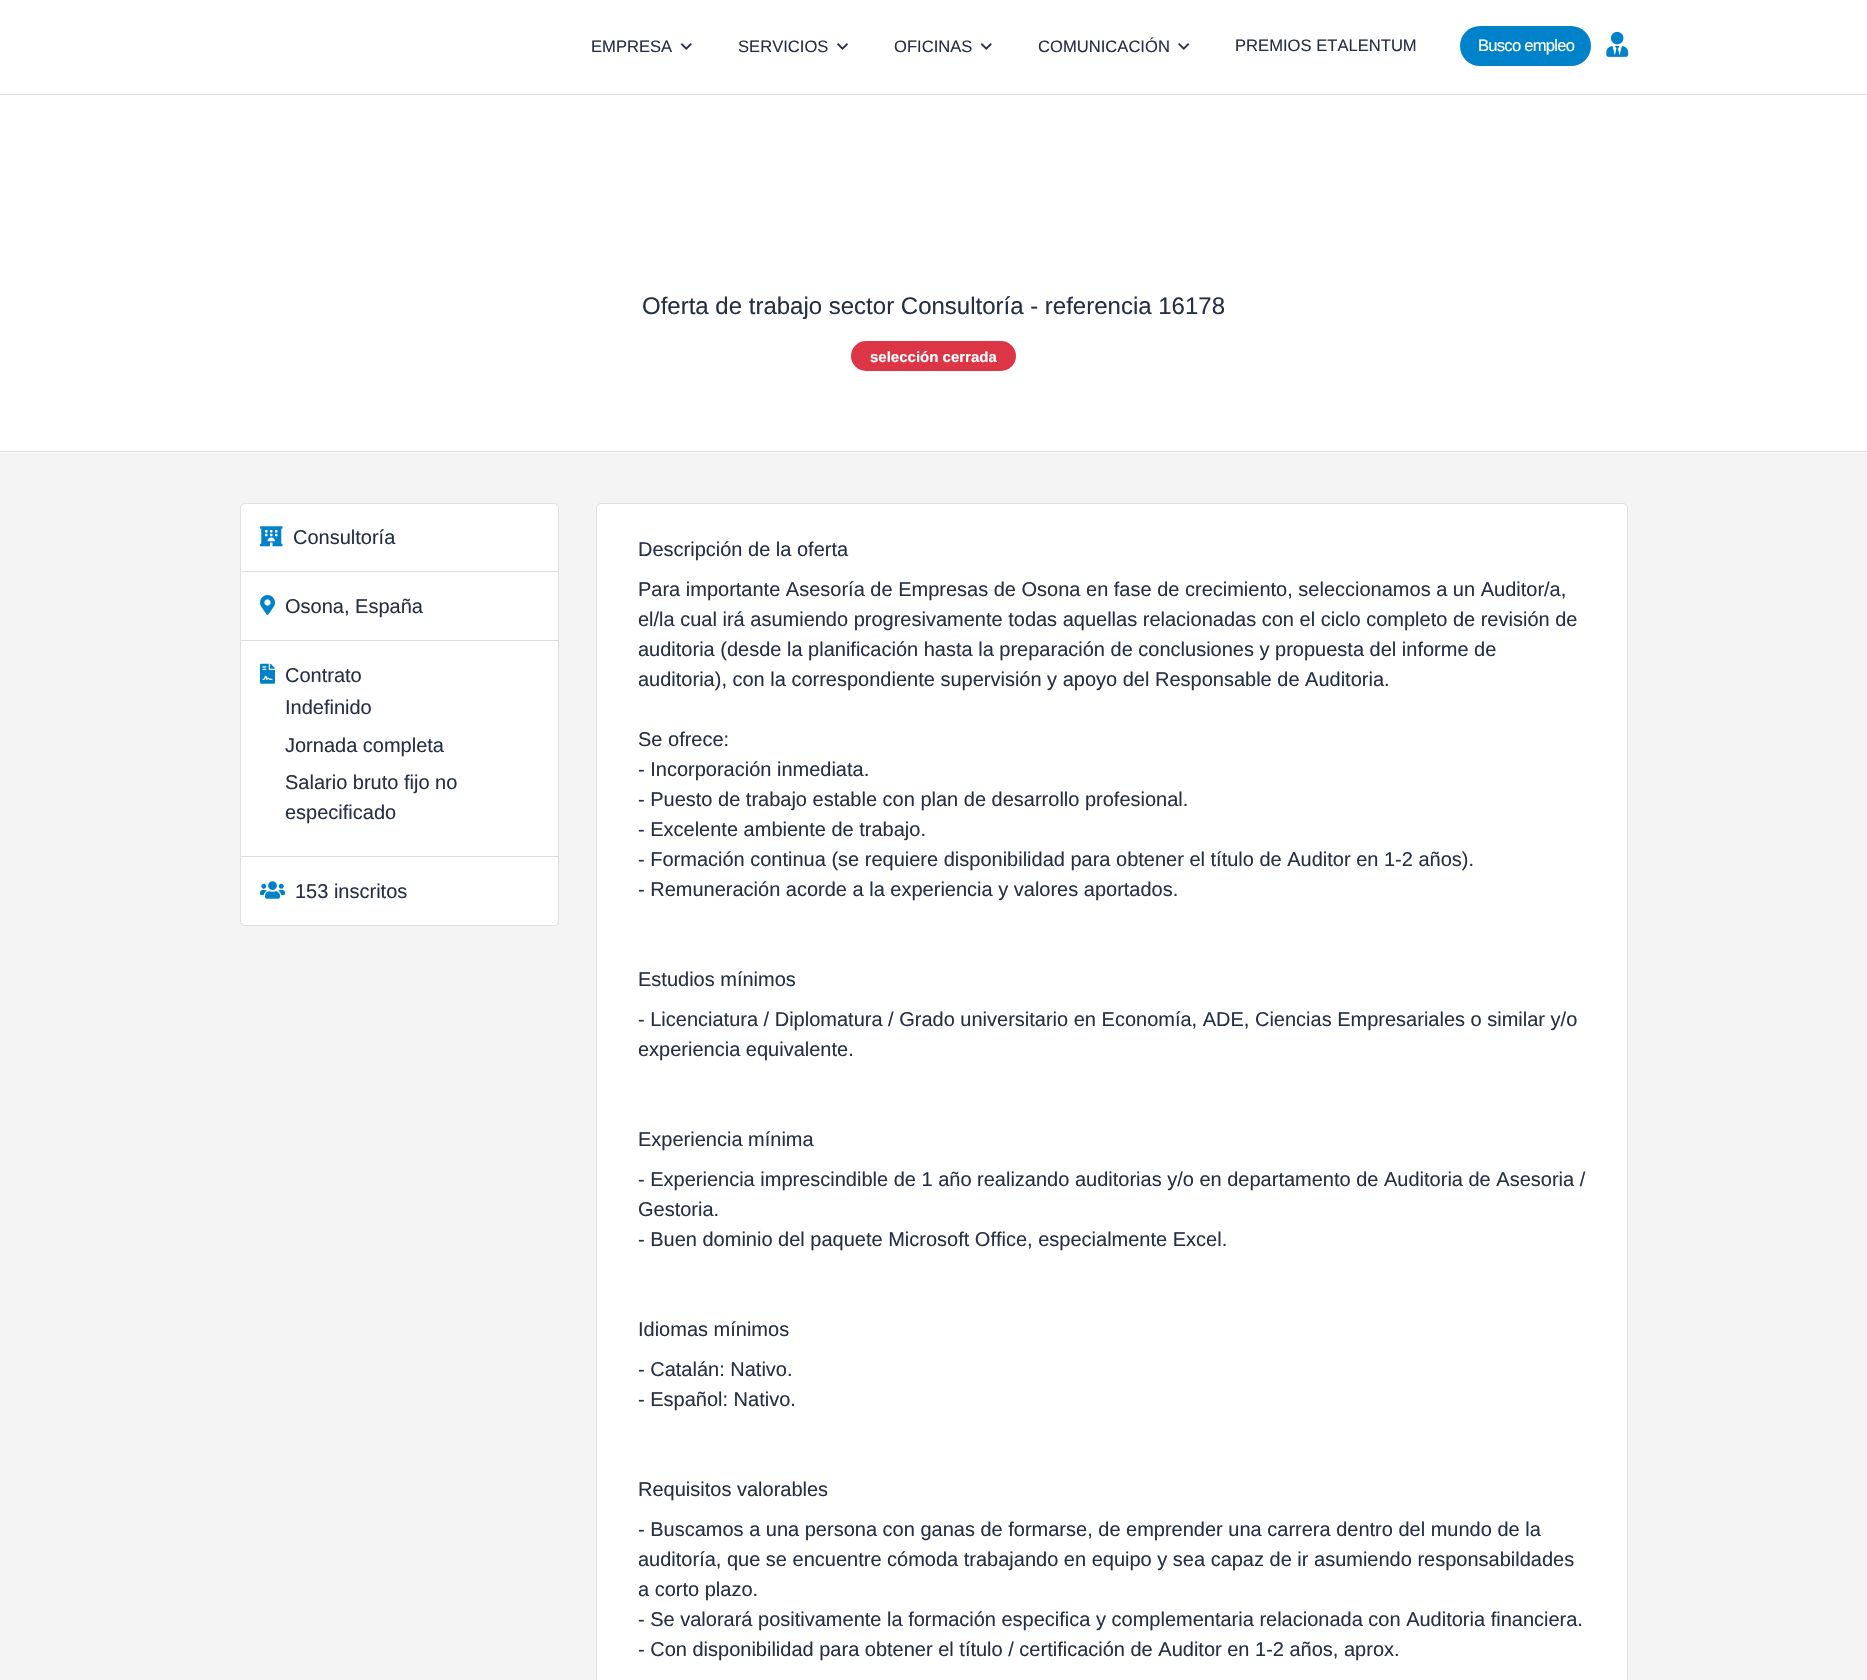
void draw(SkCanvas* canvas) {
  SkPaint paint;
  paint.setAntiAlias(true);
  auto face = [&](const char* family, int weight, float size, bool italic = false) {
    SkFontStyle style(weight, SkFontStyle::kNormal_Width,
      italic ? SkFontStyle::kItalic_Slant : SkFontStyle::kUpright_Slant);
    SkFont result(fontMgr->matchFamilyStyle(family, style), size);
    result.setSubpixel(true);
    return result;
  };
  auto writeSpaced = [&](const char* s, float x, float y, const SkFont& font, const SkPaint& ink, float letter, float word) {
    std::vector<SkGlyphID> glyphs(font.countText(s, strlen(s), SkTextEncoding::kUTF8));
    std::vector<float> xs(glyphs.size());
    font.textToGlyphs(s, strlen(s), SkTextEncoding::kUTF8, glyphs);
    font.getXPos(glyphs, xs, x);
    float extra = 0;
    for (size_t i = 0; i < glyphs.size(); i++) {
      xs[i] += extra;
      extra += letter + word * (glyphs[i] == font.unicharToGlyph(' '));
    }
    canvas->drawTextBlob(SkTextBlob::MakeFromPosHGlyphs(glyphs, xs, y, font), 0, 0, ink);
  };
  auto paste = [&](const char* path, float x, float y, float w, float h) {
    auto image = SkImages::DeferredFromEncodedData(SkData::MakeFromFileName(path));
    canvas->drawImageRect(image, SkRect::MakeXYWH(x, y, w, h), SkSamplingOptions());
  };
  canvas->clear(0xffffffff);
  paint.setColor(0xffdddddd);
  canvas->drawRect(SkRect::MakeXYWH(0, 94, 1867, 1), paint);
  paste("img/1.png", 680, 43, 12, 7);
  paste("img/2.png", 837, 43, 11, 7);
  paste("img/1.png", 980, 43, 12, 7);
  paste("img/3.png", 1178, 43, 12, 7);
  paint.setColor(0xff0082ca);
  canvas->drawRoundRect(SkRect::MakeXYWH(1460, 26, 131, 40), 20, 20, paint);
  paste("img/4.png", 1606, 31, 23, 26);
  paint.setColor(0xffdddddd);
  canvas->drawRect(SkRect::MakeXYWH(0, 451, 1867, 1), paint);
  paint.setColor(0xffdc3545);
  canvas->drawRoundRect(SkRect::MakeXYWH(851, 341, 165, 30), 15, 15, paint);
  paint.setColor(0xfff4f4f4);
  canvas->drawRect(SkRect::MakeXYWH(0, 453, 1867, 1227), paint);
  paint.setColor(0xffffffff);
  canvas->drawRoundRect(SkRect::MakeXYWH(240, 503, 319, 423), 5, 5, paint);
  paint.setStroke(true);
  paint.setStrokeWidth(1);
  paint.setColor(0x1f000000);
  canvas->drawRoundRect(SkRect::MakeXYWH(240.5f, 503.5f, 318, 422), 4.5f, 4.5f, paint);
  paint.setStroke(false);
  paint.setColor(0xffdddddd);
  canvas->drawRect(SkRect::MakeXYWH(241, 571, 317, 1), paint);
  paste("img/5.png", 260, 526, 23, 21);
  canvas->drawRect(SkRect::MakeXYWH(241, 640, 317, 1), paint);
  paste("img/6.png", 260, 595, 15, 20);
  canvas->drawRect(SkRect::MakeXYWH(241, 856, 317, 1), paint);
  paste("img/7.png", 260, 663, 15, 21);
  paste("img/8.png", 260, 881, 25, 18);
  paint.setColor(0xffffffff);
  canvas->drawRoundRect(SkRect::MakeXYWH(596, 503, 1032, 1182), 5, 5, paint);
  paint.setStroke(true);
  paint.setColor(0x1f000000);
  canvas->drawRoundRect(SkRect::MakeXYWH(596.5f, 503.5f, 1031, 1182), 4.5f, 4.5f, paint);
  auto f0 = face("Liberation Sans", 400, 16.6f);
  paint.setStroke(false);
  paint.setColor(0xff253045);
  {
    const struct { const char* s; float x, y; } items[] = {
      {"EMPRESA", 591, 52},
      {"SERVICIOS", 738, 52},
      {"OFICINAS", 894, 52},
      {"COMUNICACIÓN", 1038, 52},
      {"PREMIOS ETALENTUM", 1235, 51},
    };
    for (auto [s, x, y] : items) {
      canvas->drawString(s, x, y, f0, paint);
    }
  }
  paint.setColor(0xffffffff);
  writeSpaced("Busco empleo", 1478, 51, f0, paint, -0.75f, 0);
  auto f1 = face("Liberation Sans", 400, 24);
  paint.setColor(0xff253045);
  canvas->drawString("Oferta de trabajo sector Consultoría - referencia 16178", 642, 314, f1, paint);
  auto f2 = face("Liberation Sans", 700, 15);
  paint.setColor(0xffffffff);
  canvas->drawString("selección cerrada", 870, 362, f2, paint);
  auto f3 = face("Liberation Sans", 400, 20);
  paint.setColor(0xff253045);
  {
    const struct { const char* s; float x, y; } items[] = {
      {"Consultoría", 293, 544},
      {"Osona, España", 285, 613},
      {"Contrato", 285, 682},
      {"Indefinido", 285, 714},
      {"Jornada completa", 285, 752},
      {"Salario bruto fijo no", 285, 789},
      {"especificado", 285, 819},
      {"153 inscritos", 295, 898},
      {"Descripción de la oferta", 638, 556},
      {"Para importante Asesoría de Empresas de Osona en fase de crecimiento, seleccionamos a un Auditor/a,", 638, 596},
      {"el/la cual irá asumiendo progresivamente todas aquellas relacionadas con el ciclo completo de revisión de", 638, 626},
      {"auditoria (desde la planificación hasta la preparación de conclusiones y propuesta del informe de", 638, 656},
      {"auditoria), con la correspondiente supervisión y apoyo del Responsable de Auditoria.", 638, 686},
      {"Se ofrece:", 638, 746},
      {"- Incorporación inmediata.", 638, 776},
      {"- Puesto de trabajo estable con plan de desarrollo profesional.", 638, 806},
      {"- Excelente ambiente de trabajo.", 638, 836},
      {"- Formación continua (se requiere disponibilidad para obtener el título de Auditor en 1-2 años).", 638, 866},
      {"- Remuneración acorde a la experiencia y valores aportados.", 638, 896},
      {"Estudios mínimos", 638, 986},
      {"- Licenciatura / Diplomatura / Grado universitario en Economía, ADE, Ciencias Empresariales o similar y/o", 638, 1026},
      {"experiencia equivalente.", 638, 1056},
      {"Experiencia mínima", 638, 1146},
      {"- Experiencia imprescindible de 1 año realizando auditorias y/o en departamento de Auditoria de Asesoria /", 638, 1186},
      {"Gestoria.", 638, 1216},
      {"- Buen dominio del paquete Microsoft Office, especialmente Excel.", 638, 1246},
      {"Idiomas mínimos", 638, 1336},
      {"- Catalán: Nativo.", 638, 1376},
      {"- Español: Nativo.", 638, 1406},
      {"Requisitos valorables", 638, 1496},
      {"- Buscamos a una persona con ganas de formarse, de emprender una carrera dentro del mundo de la", 638, 1536},
      {"auditoría, que se encuentre cómoda trabajando en equipo y sea capaz de ir asumiendo responsabildades", 638, 1566},
      {"a corto plazo.", 638, 1596},
      {"- Se valorará positivamente la formación especifica y complementaria relacionada con Auditoria financiera.", 638, 1626},
      {"- Con disponibilidad para obtener el título / certificación de Auditor en 1-2 años, aprox.", 638, 1656},
    };
    for (auto [s, x, y] : items) {
      canvas->drawString(s, x, y, f3, paint);
    }
  }
}
